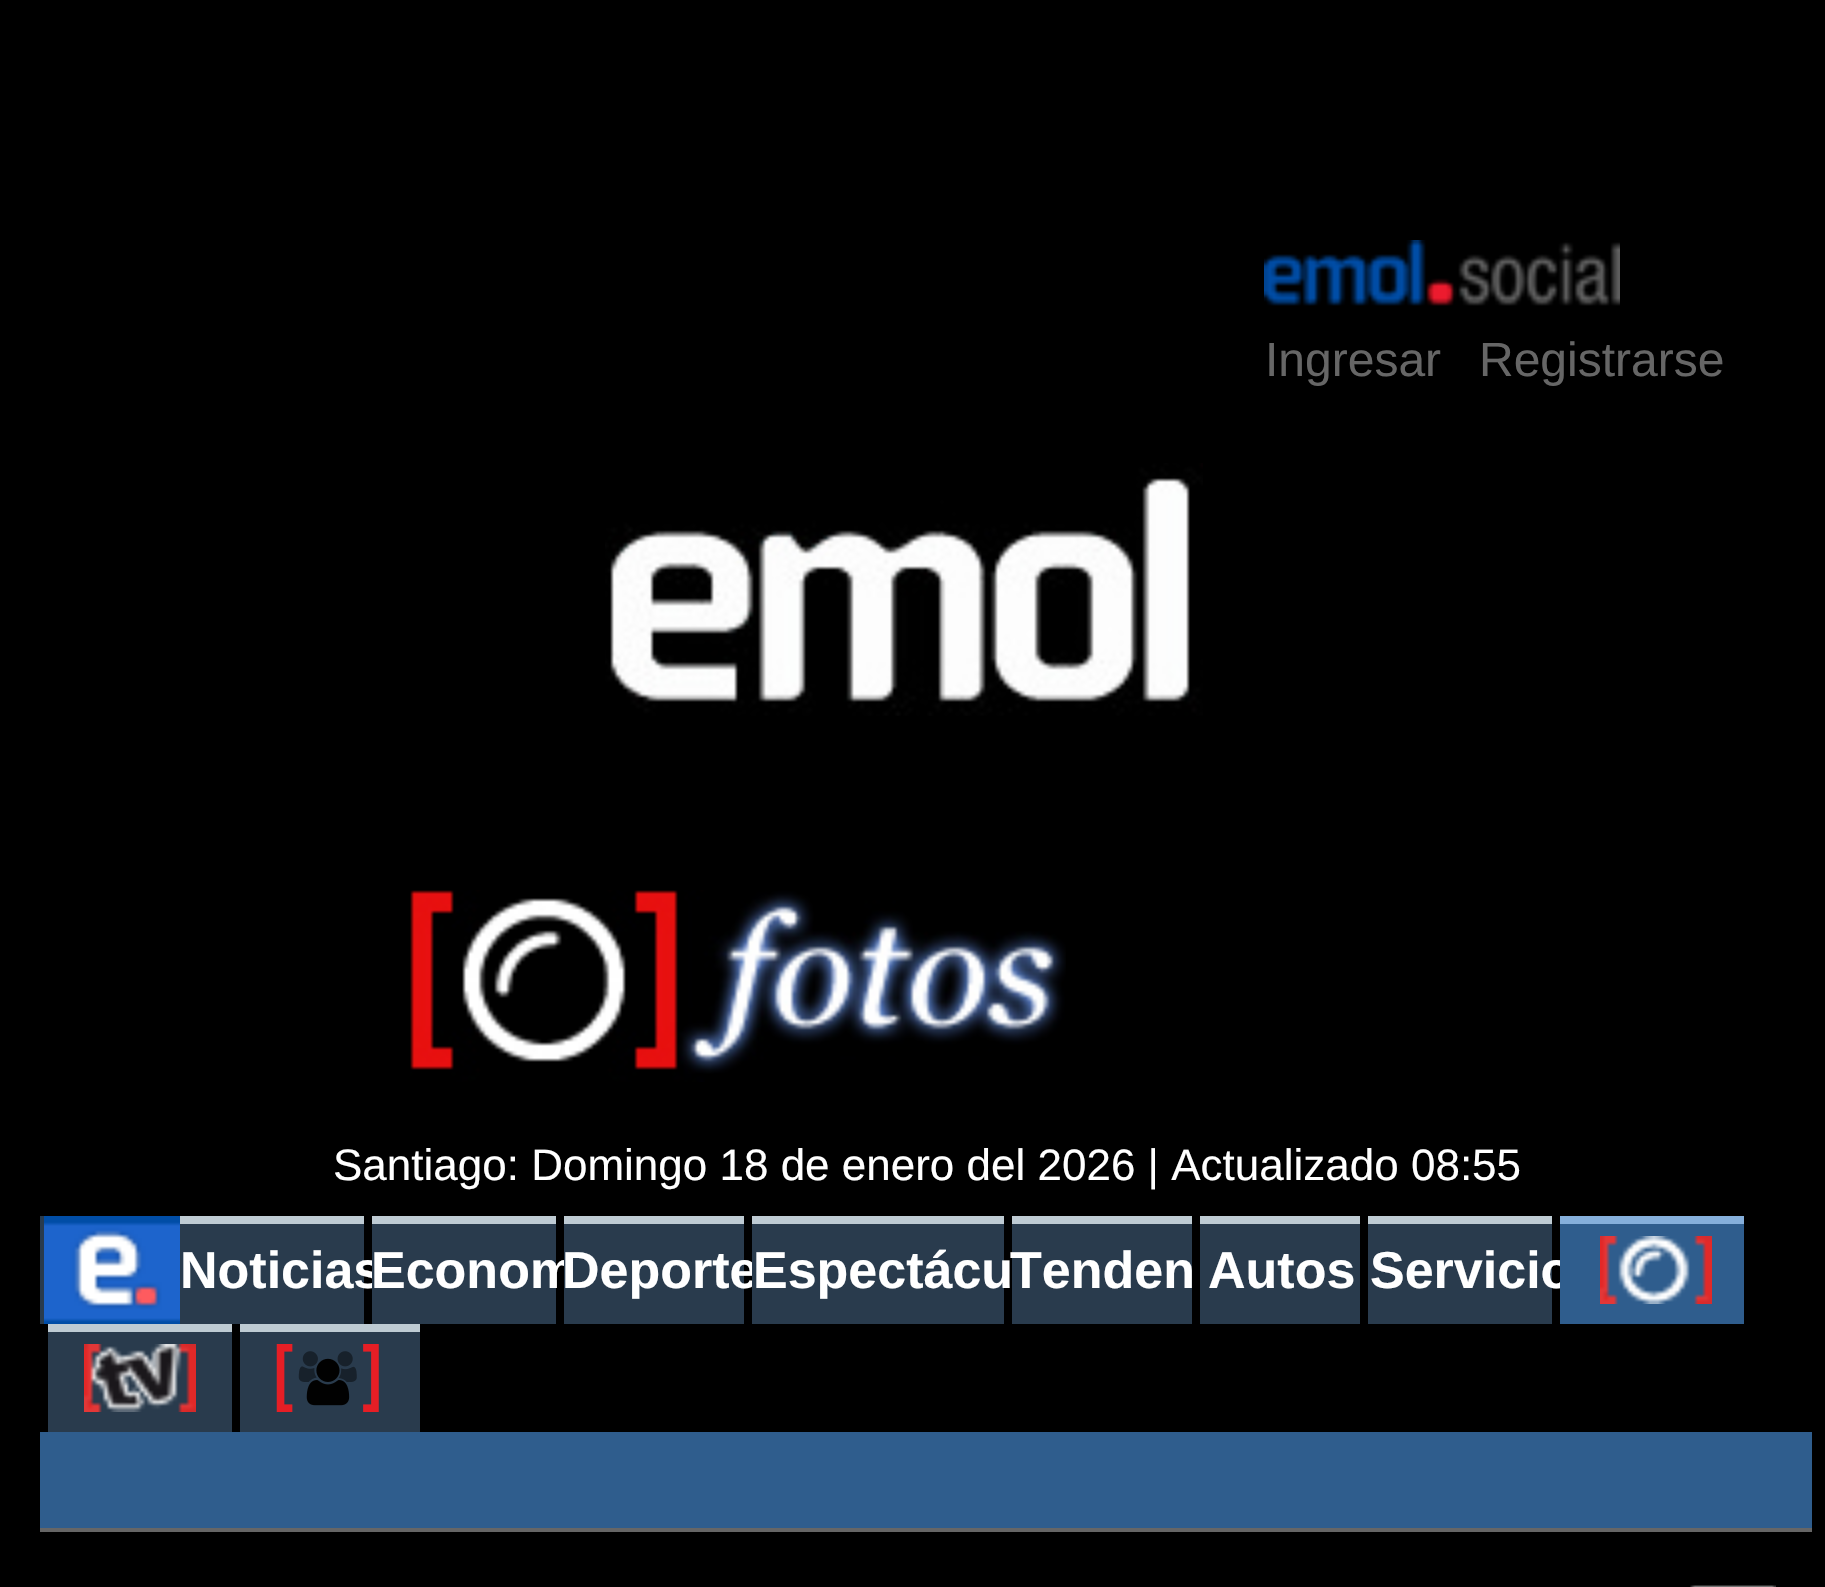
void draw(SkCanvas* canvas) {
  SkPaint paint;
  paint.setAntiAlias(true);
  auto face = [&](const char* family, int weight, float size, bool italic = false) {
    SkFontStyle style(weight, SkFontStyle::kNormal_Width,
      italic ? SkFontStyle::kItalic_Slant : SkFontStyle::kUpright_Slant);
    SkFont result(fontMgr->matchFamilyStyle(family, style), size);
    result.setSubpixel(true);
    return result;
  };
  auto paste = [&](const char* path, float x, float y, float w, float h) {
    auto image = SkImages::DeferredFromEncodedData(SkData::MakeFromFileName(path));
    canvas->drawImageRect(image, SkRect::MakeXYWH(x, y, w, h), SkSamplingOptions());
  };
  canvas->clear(0xff000000);
  paste("img/1.png", 1264, 240, 356, 66);
  paste("img/2.png", 605, 463, 598, 253);
  paste("img/3.png", 410, 890, 656, 192);
  paint.setColor(0xff293b4d);
  canvas->drawRect(SkRect::MakeXYWH(40, 1216, 4, 108), paint);
  paste("img/4.png", 44, 1216, 136, 108);
  {
    const struct { float x, y, w, h; SkColor color; } items[] = {
      {180, 1224, 184, 100, 0xff293b4d},
      {180, 1216, 184, 8, 0xffbecbd3},
      {372, 1216, 184, 8, 0xffbecbd3},
      {564, 1216, 180, 8, 0xffbecbd3},
      {752, 1216, 252, 8, 0xffbecbd3},
      {1012, 1224, 180, 100, 0xff293b4d},
      {1012, 1216, 180, 8, 0xffbecbd3},
      {1200, 1224, 160, 100, 0xff293b4d},
      {1200, 1216, 160, 8, 0xffbecbd3},
      {1368, 1224, 184, 100, 0xff293b4d},
      {1368, 1216, 184, 8, 0xffbecbd3},
      {1560, 1216, 184, 8, 0xff85afdb},
      {48, 1332, 184, 100, 0xff293b4d},
      {48, 1324, 184, 8, 0xffbecbd3},
    };
    for (auto [x, y, w, h, color] : items) {
      paint.setColor(color);
      canvas->drawRect(SkRect::MakeXYWH(x, y, w, h), paint);
    }
  }
  paste("img/6.png", 84, 1344, 112, 68);
  paint.setColor(0xff293b4d);
  canvas->drawRect(SkRect::MakeXYWH(240, 1332, 180, 100), paint);
  paint.setColor(0xffbecbd3);
  canvas->drawRect(SkRect::MakeXYWH(240, 1324, 180, 8), paint);
  paste("img/7.png", 276, 1344, 103, 68);
  paint.setColor(0xff2f5d8d);
  canvas->drawRect(SkRect::MakeXYWH(40, 1432, 1772, 96), paint);
  paint.setColor(0xff666666);
  canvas->drawRect(SkRect::MakeXYWH(40, 1528, 1772, 4), paint);
  paste("img/8.png", 1690, 1585, 86, 2);
  auto f0 = face("Liberation Sans", 400, 48);
  canvas->drawString("Ingresar", 1265, 376, f0, paint);
  canvas->drawString("Registrarse", 1479, 376, f0, paint);
  auto f1 = face("Liberation Sans", 400, 44);
  paint.setColor(0xffffffff);
  canvas->drawString("Santiago: Domingo 18 de enero del 2026 | Actualizado 08:55", 333, 1180, f1, paint);
  auto f2 = face("Liberation Sans", 700, 52);
  canvas->drawString("Noticias", 180, 1288, f2, paint);
  paint.setColor(0xff293b4d);
  canvas->drawRect(SkRect::MakeXYWH(372, 1224, 184, 100), paint);
  paint.setColor(0xffffffff);
  canvas->drawString("Econom", 371, 1288, f2, paint);
  paint.setColor(0xff293b4d);
  canvas->drawRect(SkRect::MakeXYWH(564, 1224, 180, 100), paint);
  paint.setColor(0xffffffff);
  canvas->drawString("Deporte", 562, 1288, f2, paint);
  paint.setColor(0xff293b4d);
  canvas->drawRect(SkRect::MakeXYWH(752, 1224, 252, 100), paint);
  paint.setColor(0xffffffff);
  {
    const struct { const char* s; float x, y; } items[] = {
      {"Espectácu", 753, 1288},
      {"Tenden", 1010, 1288},
      {"Autos", 1208, 1288},
      {"Servicio", 1370, 1288},
    };
    for (auto [s, x, y] : items) {
      canvas->drawString(s, x, y, f2, paint);
    }
  }
  paint.setColor(0xff2f5d8d);
  canvas->drawRect(SkRect::MakeXYWH(1560, 1224, 184, 100), paint);
  paste("img/5.png", 1600, 1236, 112, 68);
}
